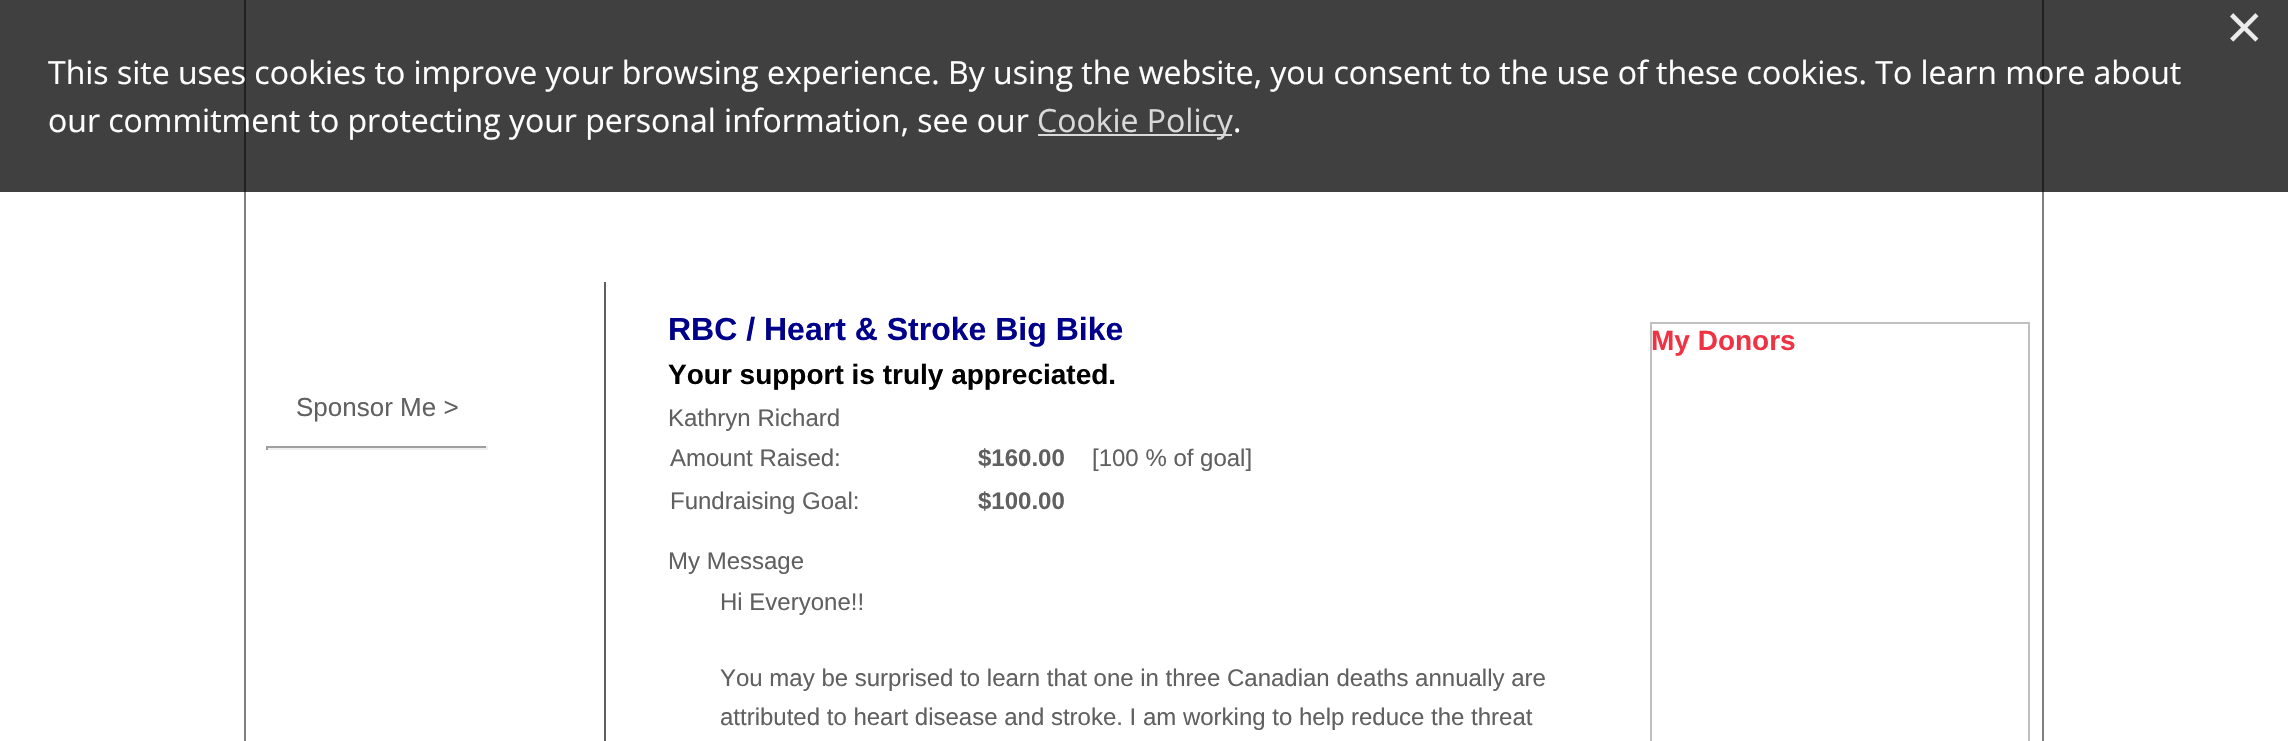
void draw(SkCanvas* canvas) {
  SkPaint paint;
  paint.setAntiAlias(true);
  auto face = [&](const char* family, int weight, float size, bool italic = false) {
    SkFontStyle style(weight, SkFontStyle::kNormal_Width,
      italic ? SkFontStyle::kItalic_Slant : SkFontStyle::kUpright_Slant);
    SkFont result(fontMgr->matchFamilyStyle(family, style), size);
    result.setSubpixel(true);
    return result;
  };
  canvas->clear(0xffffffff);
  {
    const struct { float x, y, w, h; SkColor color; } items[] = {
      {0, 0, 2288, 192, 0xff404040},
      {1038, 134, 194, 2, 0xffd9d9d9},
      {2042, 192, 2, 549, 0xff808080},
      {2042, 0, 2, 192, 0xff202020},
      {244, 192, 2, 549, 0xff808080},
      {244, 0, 2, 192, 0xff202020},
      {266, 446, 222, 2, 0xff9f9f9f},
      {486, 446, 2, 4, 0xffeeeeee},
      {266, 448, 222, 2, 0xffeeeeee},
      {266, 446, 2, 4, 0xff9f9f9f},
      {604, 282, 2, 459, 0xff606060},
    };
    for (auto [x, y, w, h, color] : items) {
      paint.setColor(color);
      canvas->drawRect(SkRect::MakeXYWH(x, y, w, h), paint);
    }
  }
  paint.setStroke(true);
  paint.setStrokeWidth(2);
  paint.setColor(0xffc0c0c0);
  canvas->drawRect(SkRect::MakeXYWH(1651, 323, 378, 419), paint);
  auto f0 = face("Open Sans", 400, 64);
  paint.setStroke(false);
  paint.setColor(0xffececec);
  canvas->drawString("×", 2226, 50, f0, paint);
  auto f1 = face("Open Sans", 400, 32);
  paint.setColor(0xffffffff);
  canvas->drawString("This site uses cookies to improve your browsing experience. By using the website, you consent to the use of these cookies. To learn more about", 48, 84, f1, paint);
  canvas->drawString("our commitment to protecting your personal information, see our", 48, 132, f1, paint);
  paint.setColor(0xffd9d9d9);
  canvas->drawString("Cookie Policy", 1037, 132, f1, paint);
  paint.setColor(0xffffffff);
  canvas->drawString(".", 1233, 132, f1, paint);
  auto f2 = face("Liberation Sans", 400, 26);
  paint.setColor(0xff606060);
  canvas->drawString("Sponsor Me >", 296, 416, f2, paint);
  auto f3 = face("Liberation Sans", 700, 32);
  paint.setColor(0xff00008b);
  canvas->drawString("RBC / Heart & Stroke Big Bike", 668, 340, f3, paint);
  auto f4 = face("Liberation Sans", 700, 28);
  paint.setColor(0xff000000);
  canvas->drawString("Your support is truly appreciated.", 668, 384, f4, paint);
  auto f5 = face("Liberation Sans", 400, 24);
  paint.setColor(0xff606060);
  canvas->drawString("Kathryn Richard", 668, 426, f5, paint);
  canvas->drawString("Amount Raised:", 670, 466, f5, paint);
  auto f6 = face("Liberation Sans", 700, 24);
  canvas->drawString("$160.00", 978, 466, f6, paint);
  canvas->drawString("[100 % of goal]", 1092, 466, f5, paint);
  canvas->drawString("Fundraising Goal:", 670, 509, f5, paint);
  canvas->drawString("$100.00", 978, 509, f6, paint);
  {
    const struct { const char* s; float x, y; } items[] = {
      {"My Message", 668, 569},
      {"Hi Everyone!!", 720, 610},
      {"You may be surprised to learn that one in three Canadian deaths annually are", 720, 686},
      {"attributed to heart disease and stroke. I am working to help reduce the threat", 720, 725},
    };
    for (auto [s, x, y] : items) {
      canvas->drawString(s, x, y, f5, paint);
    }
  }
  paint.setColor(0xffee3344);
  canvas->drawString("My Donors", 1651, 350, f4, paint);
}
